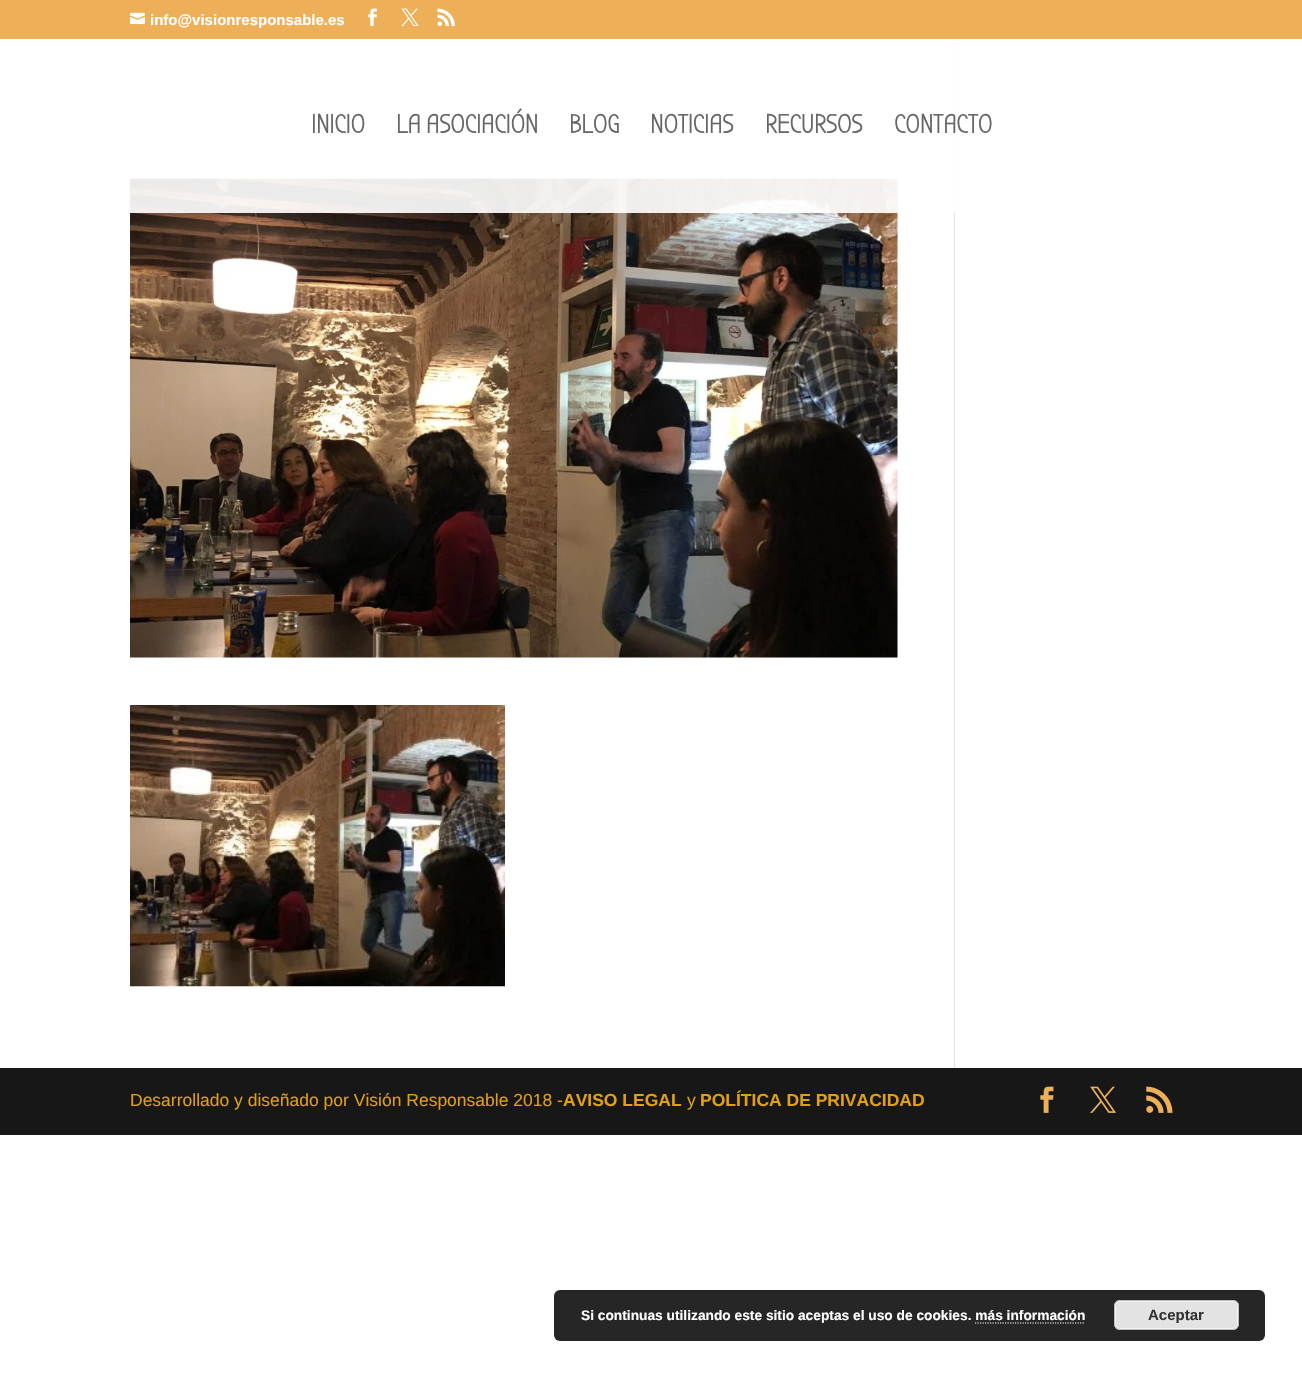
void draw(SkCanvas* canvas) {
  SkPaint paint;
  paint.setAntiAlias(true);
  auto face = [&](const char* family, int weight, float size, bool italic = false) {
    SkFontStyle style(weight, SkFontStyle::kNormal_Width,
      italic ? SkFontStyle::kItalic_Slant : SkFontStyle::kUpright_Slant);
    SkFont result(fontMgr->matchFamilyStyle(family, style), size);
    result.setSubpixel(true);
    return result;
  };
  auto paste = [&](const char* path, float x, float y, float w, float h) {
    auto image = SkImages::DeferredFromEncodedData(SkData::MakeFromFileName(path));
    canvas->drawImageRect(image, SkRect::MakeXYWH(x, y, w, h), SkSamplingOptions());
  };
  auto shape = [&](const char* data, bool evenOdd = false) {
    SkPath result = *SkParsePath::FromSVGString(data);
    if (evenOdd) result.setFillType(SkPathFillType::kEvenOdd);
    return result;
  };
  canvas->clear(0xffffffff);
  paint.setColor(0xffedb059);
  canvas->drawRect(SkRect::MakeXYWH(0, 0, 1302, 39), paint);
  paste("img/1.png", 130, 12, 15, 13);
  paste("img/2.png", 368, 8, 9, 19);
  paste("img/3.png", 401, 8, 18, 19);
  paste("img/4.png", 437, 8, 18, 19);
  paste("img/5.png", 130, 178, 768, 480);
  paint.setColor(0xffe2e2e2);
  canvas->drawRect(SkRect::MakeXYWH(954, 39, 1, 1029), paint);
  paint.setColor(0xe8ffffff);
  canvas->drawRect(SkRect::MakeXYWH(130, 39, 825, 174), paint);
  paste("img/6.png", 130, 705, 375, 282);
  paint.setColor(0xff171717);
  canvas->drawRect(SkRect::MakeXYWH(0, 1068, 1302, 67), paint);
  paste("img/7.png", 1040, 1086, 14, 27);
  paste("img/8.png", 1090, 1086, 26, 27);
  paste("img/9.png", 1146, 1086, 27, 27);
  paint.setColor(0xff262626);
  canvas->drawRoundRect(SkRect::MakeXYWH(554, 1290, 711, 51), 6, 6, paint);
  paint.setColor(0xffe3e3e3);
  canvas->drawRoundRect(SkRect::MakeXYWH(1114, 1300, 125, 30), 6, 6, paint);
  paint.setStroke(true);
  paint.setStrokeWidth(1);
  paint.setColor(0xfff6f6f6);
  canvas->drawRoundRect(SkRect::MakeXYWH(1115.5f, 1301.5f, 122, 27), 4.5f, 4.5f, paint);
  paint.setColor(0xffbbbbbb);
  canvas->drawRoundRect(SkRect::MakeXYWH(1114.5f, 1300.5f, 124, 29), 5.5f, 5.5f, paint);
  paint.setStrokeWidth(1.2f);
  paint.setColor(0xffffffff);
  paint.setPathEffect(SkDashPathEffect::Make({{1.25f, 1.25f}}, 0));
  canvas->drawPath(shape("M975 1323H1085"), paint);
  paint.setPathEffect(nullptr);
  auto f0 = face("Liberation Sans", 700, 15);
  paint.setStroke(false);
  canvas->drawString("info@visionresponsable.es", 150, 25, f0, paint);
  auto f1 = face("Bubbler One", 700, 26.25f);
  paint.setColor(0xff666666);
  {
    const struct { const char* s; float x, y; } items[] = {
      {"INICIO", 311, 133},
      {"LA ASOCIACIÓN", 396, 133},
      {"BLOG", 569, 133},
      {"NOTICIAS", 650, 133},
      {"RECURSOS", 765, 133},
      {"CONTACTO", 894, 133},
    };
    for (auto [s, x, y] : items) {
      canvas->drawString(s, x, y, f1, paint);
    }
  }
  auto f2 = face("Liberation Sans", 400, 17.5f);
  paint.setColor(0xffe09f14);
  canvas->drawString("Desarrollado y diseñado por Visión Responsable 2018 -", 130, 1106, f2, paint);
  auto f3 = face("Liberation Sans", 700, 17.5f);
  canvas->drawString("AVISO LEGAL", 563, 1106, f3, paint);
  canvas->drawString("y", 687, 1106, f2, paint);
  canvas->drawString("POLÍTICA DE PRIVACIDAD", 700, 1106, f3, paint);
  auto f4 = face("Liberation Sans", 700, 13.75f);
  paint.setColor(0xffffffff);
  canvas->drawString("Si continuas utilizando este sitio aceptas el uso de cookies. más información", 581, 1320, f4, paint);
  paint.setColor(0xff333333);
  canvas->drawString("Aceptar", 1148, 1320, f0, paint);
}
